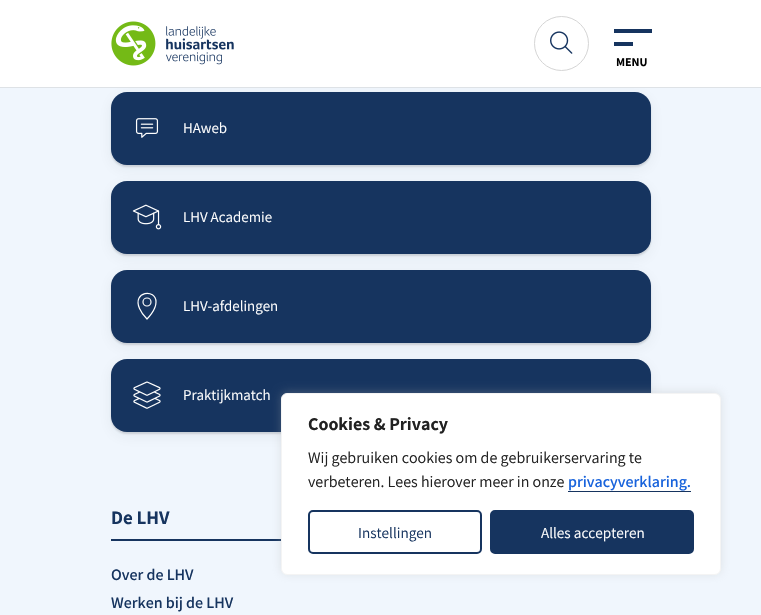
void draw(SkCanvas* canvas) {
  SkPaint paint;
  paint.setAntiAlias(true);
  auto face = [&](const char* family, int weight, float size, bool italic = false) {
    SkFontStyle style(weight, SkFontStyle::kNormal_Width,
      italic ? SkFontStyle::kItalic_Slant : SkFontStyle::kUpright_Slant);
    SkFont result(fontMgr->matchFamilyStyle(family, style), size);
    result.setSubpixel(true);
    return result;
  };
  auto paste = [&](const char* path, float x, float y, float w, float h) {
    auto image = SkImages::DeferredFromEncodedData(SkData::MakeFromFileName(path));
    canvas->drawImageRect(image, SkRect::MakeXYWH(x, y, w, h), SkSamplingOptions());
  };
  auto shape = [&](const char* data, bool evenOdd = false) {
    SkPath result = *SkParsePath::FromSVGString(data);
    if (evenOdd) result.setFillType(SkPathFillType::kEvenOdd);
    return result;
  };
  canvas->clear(0xfff0f6fd);
  paint.setColor(0x0f282c35);
  paint.setMaskFilter(SkMaskFilter::MakeBlur(kNormal_SkBlurStyle, 7.5f));
  canvas->drawRoundRect(SkRect::MakeXYWH(111, 96, 540, 73), 16, 16, paint);
  paint.setMaskFilter(nullptr);
  paint.setColor(0xffffffff);
  canvas->drawRect(SkRect::MakeXYWH(0, 0, 761, 87), paint);
  paint.setColor(0xffdee2e6);
  canvas->drawRect(SkRect::MakeXYWH(0, 87, 761, 1), paint);
  paste("img/1.png", 111, 21, 123, 45);
  paint.setStroke(true);
  paint.setStrokeWidth(1);
  paint.setColor(0xffd5d5d5);
  canvas->drawCircle(561.5f, 43.5f, 27, paint);
  paste("img/2.png", 550, 31, 23, 23);
  paint.setStroke(false);
  paint.setColor(0xff16345f);
  canvas->drawRect(SkRect::MakeXYWH(614, 29, 38, 4), paint);
  canvas->drawRect(SkRect::MakeXYWH(614, 42, 19, 4), paint);
  paint.setColor(0x29282c35);
  paint.setMaskFilter(SkMaskFilter::MakeBlur(kNormal_SkBlurStyle, 1));
  canvas->drawRoundRect(SkRect::MakeXYWH(111, 94, 540, 73), 16, 16, paint);
  paint.setMaskFilter(nullptr);
  paint.setColor(0xff16345f);
  canvas->drawRoundRect(SkRect::MakeXYWH(111, 92, 540, 73), 16, 16, paint);
  paste("img/3.png", 135, 118, 24, 20);
  paint.setColor(0x29282c35);
  paint.setMaskFilter(SkMaskFilter::MakeBlur(kNormal_SkBlurStyle, 1));
  canvas->drawRoundRect(SkRect::MakeXYWH(111, 183, 540, 73), 16, 16, paint);
  paint.setMaskFilter(nullptr);
  paint.setColor(0x0f282c35);
  paint.setMaskFilter(SkMaskFilter::MakeBlur(kNormal_SkBlurStyle, 7.5f));
  canvas->drawRoundRect(SkRect::MakeXYWH(111, 185, 540, 73), 16, 16, paint);
  paint.setMaskFilter(nullptr);
  paint.setColor(0xff16345f);
  canvas->drawRoundRect(SkRect::MakeXYWH(111, 181, 540, 73), 16, 16, paint);
  paste("img/4.png", 132, 204, 30, 26);
  paint.setColor(0x29282c35);
  paint.setMaskFilter(SkMaskFilter::MakeBlur(kNormal_SkBlurStyle, 1));
  canvas->drawRoundRect(SkRect::MakeXYWH(111, 272, 540, 73), 16, 16, paint);
  paint.setMaskFilter(nullptr);
  paint.setColor(0x0f282c35);
  paint.setMaskFilter(SkMaskFilter::MakeBlur(kNormal_SkBlurStyle, 7.5f));
  canvas->drawRoundRect(SkRect::MakeXYWH(111, 274, 540, 73), 16, 16, paint);
  paint.setMaskFilter(nullptr);
  paint.setColor(0xff16345f);
  canvas->drawRoundRect(SkRect::MakeXYWH(111, 270, 540, 73), 16, 16, paint);
  paint.setStroke(true);
  paint.setStrokeWidth(1.2f);
  paint.setColor(0xffffffff);
  canvas->drawCircle(147, 302, 4, paint);
  paint.setStrokeCap(SkPaint::kRound_Cap);
  paint.setStrokeJoin(SkPaint::kRound_Join);
  canvas->drawPath(shape("M156 302C156 310.5 147 319 147 319C144 316 141 312 139.5 308.5C132 291 156 288.5 156 302Z"), paint);
  paint.setStroke(false);
  paint.setColor(0x29282c35);
  paint.setMaskFilter(SkMaskFilter::MakeBlur(kNormal_SkBlurStyle, 1));
  canvas->drawRoundRect(SkRect::MakeXYWH(111, 361, 540, 73), 16, 16, paint);
  paint.setMaskFilter(nullptr);
  paint.setColor(0x0f282c35);
  paint.setMaskFilter(SkMaskFilter::MakeBlur(kNormal_SkBlurStyle, 7.5f));
  canvas->drawRoundRect(SkRect::MakeXYWH(111, 363, 540, 73), 16, 16, paint);
  paint.setMaskFilter(nullptr);
  paint.setColor(0xff16345f);
  canvas->drawRoundRect(SkRect::MakeXYWH(111, 359, 540, 73), 16, 16, paint);
  paste("img/5.png", 133, 381, 28, 28);
  canvas->drawRect(SkRect::MakeXYWH(111, 539, 170, 2), paint);
  paint.setColor(0x4dacabab);
  paint.setMaskFilter(SkMaskFilter::MakeBlur(kNormal_SkBlurStyle, 5));
  canvas->drawRoundRect(SkRect::MakeXYWH(281, 392, 440, 182), 6, 6, paint);
  paint.setMaskFilter(nullptr);
  paint.setColor(0xffffffff);
  canvas->drawRoundRect(SkRect::MakeXYWH(281.5f, 393.5f, 439, 181), 5.5f, 5.5f, paint);
  paint.setStroke(true);
  paint.setStrokeWidth(1);
  paint.setStrokeCap(SkPaint::kButt_Cap);
  paint.setStrokeJoin(SkPaint::kMiter_Join);
  paint.setColor(0xfff4f4f4);
  canvas->drawRoundRect(SkRect::MakeXYWH(281.5f, 393.5f, 439, 181), 5.5f, 5.5f, paint);
  paint.setStroke(false);
  paint.setColor(0xff16345f);
  canvas->drawRect(SkRect::MakeXYWH(568, 491, 123, 1), paint);
  paint.setStroke(true);
  paint.setStrokeWidth(2);
  canvas->drawRoundRect(SkRect::MakeXYWH(309, 511, 172, 42), 4, 4, paint);
  paint.setStroke(false);
  canvas->drawRoundRect(SkRect::MakeXYWH(491, 511, 202, 42), 4, 4, paint);
  paint.setStroke(true);
  canvas->drawRoundRect(SkRect::MakeXYWH(491, 511, 202, 42), 4, 4, paint);
  auto f0 = face("Assistant", 700, 12);
  paint.setStroke(false);
  paint.setColor(0xff000000);
  canvas->drawString("MENU", 616, 66, f0, paint);
  auto f1 = face("Assistant", 400, 15);
  paint.setColor(0xffffffff);
  {
    const struct { const char* s; float x, y; } items[] = {
      {"HAweb", 183, 133},
      {"LHV Academie", 183, 222},
      {"LHV-afdelingen", 183, 311},
      {"Praktijkmatch", 183, 400},
    };
    for (auto [s, x, y] : items) {
      canvas->drawString(s, x, y, f1, paint);
    }
  }
  auto f2 = face("Assistant", 700, 19);
  paint.setColor(0xff16345f);
  canvas->drawString("De LHV", 111, 524, f2, paint);
  auto f3 = face("Assistant", 600, 16);
  canvas->drawString("Over de LHV", 111, 580, f3, paint);
  canvas->drawString("Werken bij de LHV", 111, 608, f3, paint);
  auto f4 = face("Assistant", 700, 18);
  paint.setColor(0xff212121);
  canvas->drawString("Cookies & Privacy", 308, 430, f4, paint);
  auto f5 = face("Assistant", 400, 16);
  canvas->drawString("Wij gebruiken cookies om de gebruikerservaring te", 308, 463, f5, paint);
  canvas->drawString("verbeteren. Lees hierover meer in onze", 308, 487, f5, paint);
  paint.setColor(0xff1863dc);
  canvas->drawString("privacyverklaring.", 568, 487, f3, paint);
  auto f6 = face("Assistant", 400, 15.25f);
  paint.setColor(0xff16345f);
  canvas->drawString("Instellingen", 358, 538, f6, paint);
  paint.setColor(0xffffffff);
  canvas->drawString("Alles accepteren", 541, 538, f6, paint);
}
